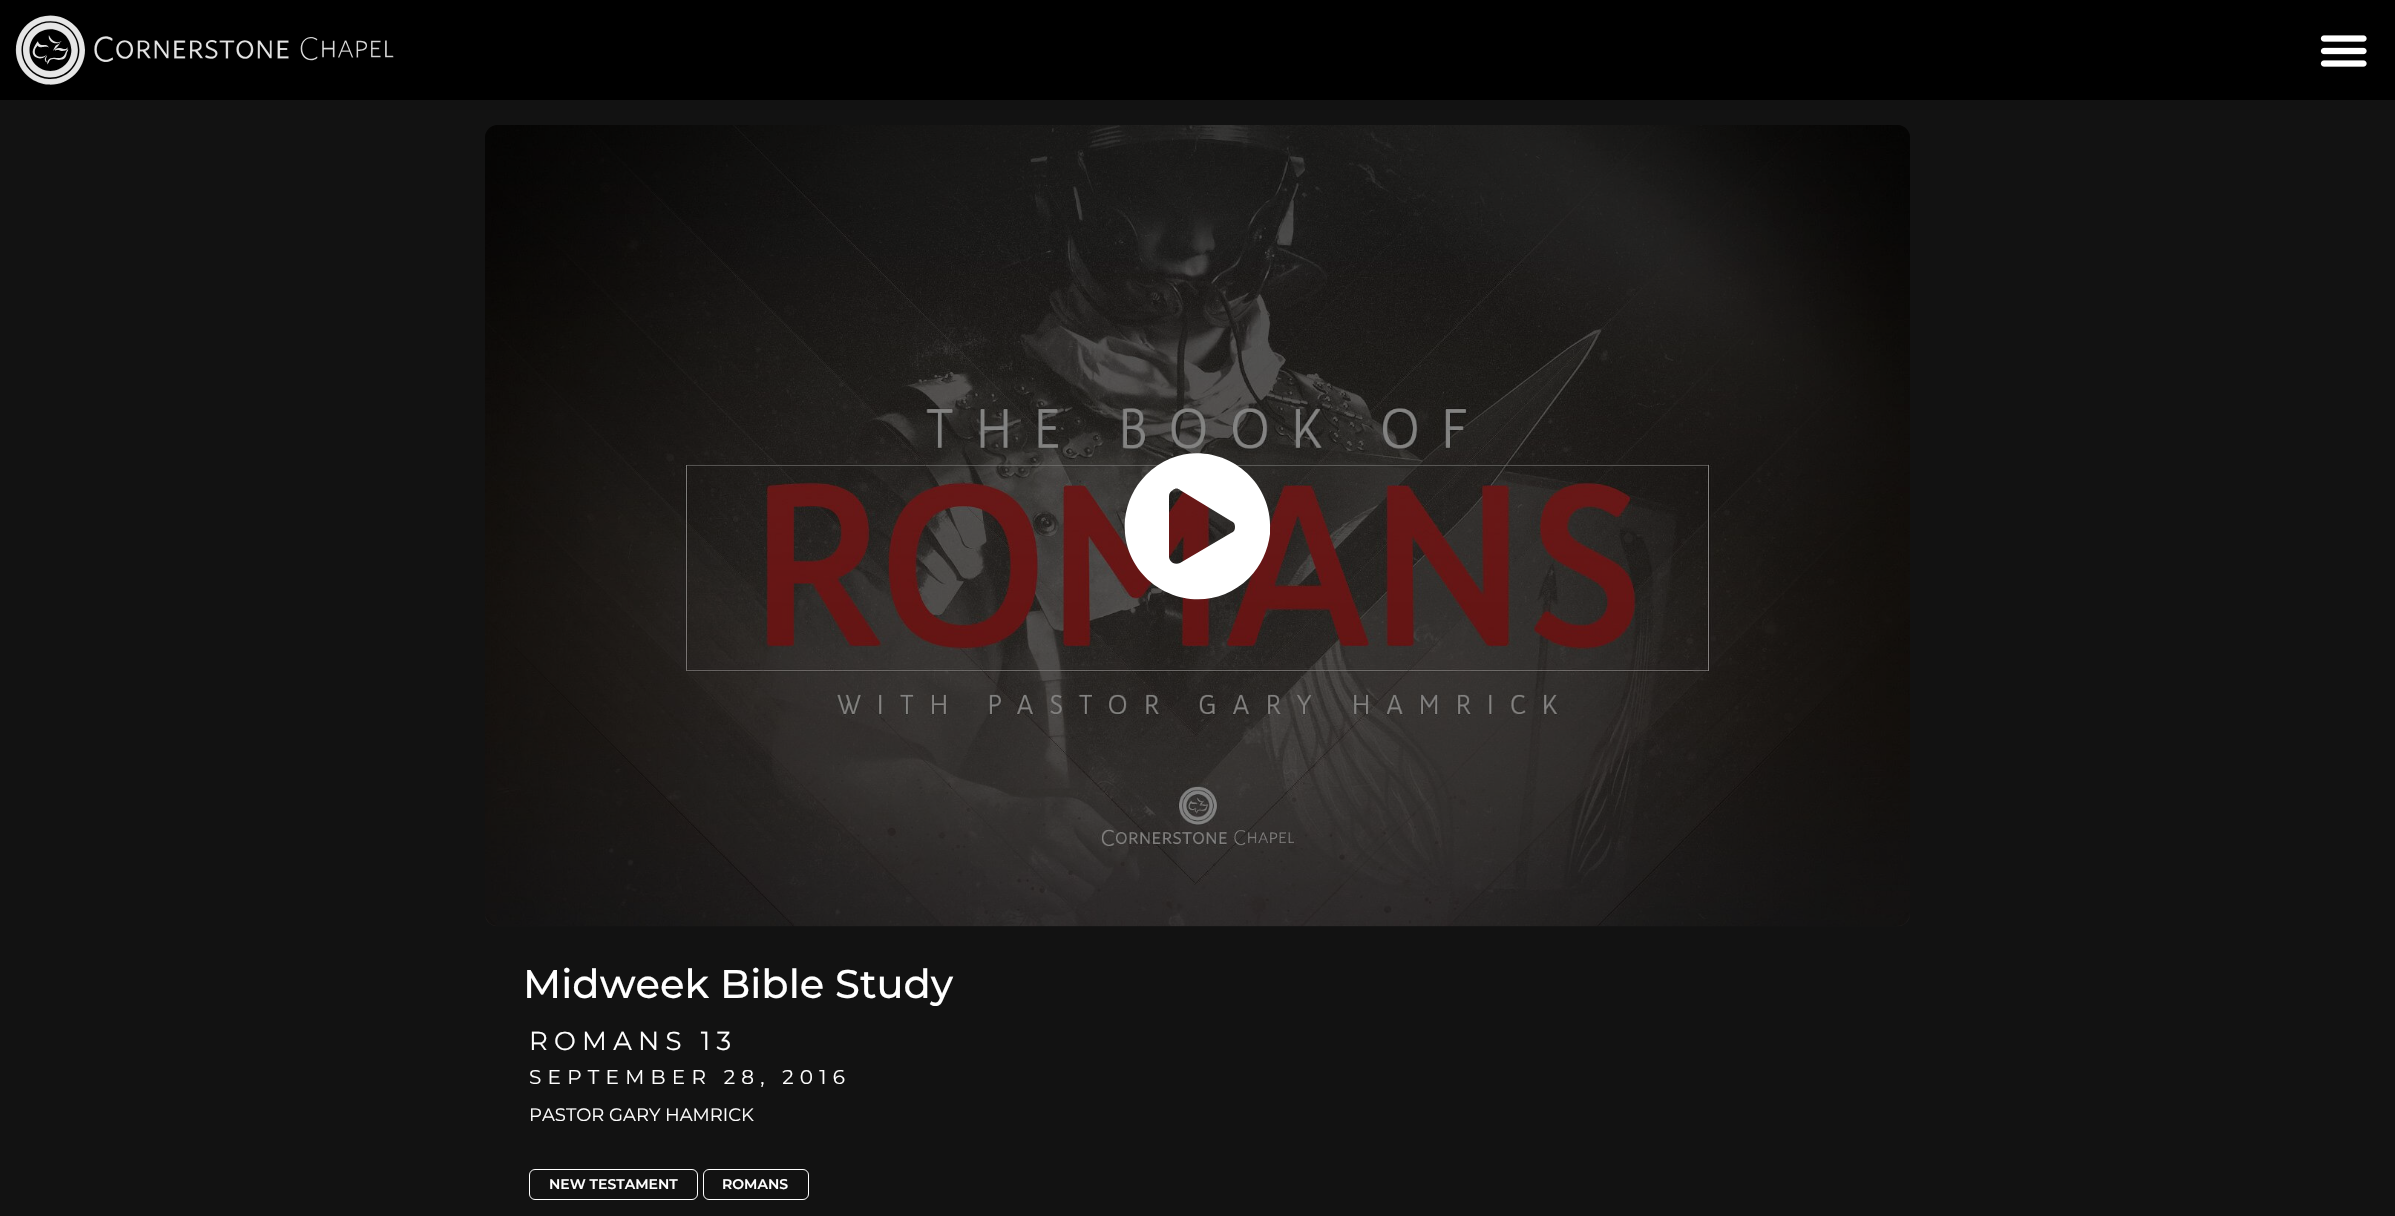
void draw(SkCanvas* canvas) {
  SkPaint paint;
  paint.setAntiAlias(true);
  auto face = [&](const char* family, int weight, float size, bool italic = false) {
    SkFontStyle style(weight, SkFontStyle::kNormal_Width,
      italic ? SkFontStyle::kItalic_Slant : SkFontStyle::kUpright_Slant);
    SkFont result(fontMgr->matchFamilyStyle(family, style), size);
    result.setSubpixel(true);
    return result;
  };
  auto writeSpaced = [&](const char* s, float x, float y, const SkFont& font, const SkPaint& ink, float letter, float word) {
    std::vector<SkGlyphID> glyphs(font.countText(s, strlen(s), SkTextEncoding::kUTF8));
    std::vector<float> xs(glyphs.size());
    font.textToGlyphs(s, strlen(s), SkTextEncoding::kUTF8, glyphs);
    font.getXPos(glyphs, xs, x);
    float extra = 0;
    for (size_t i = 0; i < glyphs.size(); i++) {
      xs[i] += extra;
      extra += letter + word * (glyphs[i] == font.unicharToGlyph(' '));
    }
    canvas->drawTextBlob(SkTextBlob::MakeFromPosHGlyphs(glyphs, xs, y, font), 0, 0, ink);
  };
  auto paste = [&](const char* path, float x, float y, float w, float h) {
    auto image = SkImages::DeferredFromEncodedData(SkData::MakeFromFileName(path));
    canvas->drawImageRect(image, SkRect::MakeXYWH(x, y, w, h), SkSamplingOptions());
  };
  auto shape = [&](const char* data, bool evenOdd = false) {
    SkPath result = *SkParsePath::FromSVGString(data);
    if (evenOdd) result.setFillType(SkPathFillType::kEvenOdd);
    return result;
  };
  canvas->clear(0xff121212);
  paint.setColor(0xff000000);
  canvas->drawRect(SkRect::MakeXYWH(0, 0, 2395, 100), paint);
  paste("img/1.png", 15, 15, 70, 70);
  paste("img/2.png", 94, 36, 300, 26);
  paste("img/3.png", 2320, 35, 47, 32);
  paste("img/4.png", 485, 125, 1425, 802);
  paint.setColor(0x7a000000);
  canvas->drawRoundRect(SkRect::MakeXYWH(485, 125, 1425, 801), 13, 13, paint);
  paint.setColor(0xffffffff);
  canvas->drawPath(shape("M1146 475C1195 426 1276 466 1270 534C1268 550 1261 566 1249 578C1200 626 1119 587 1125 519C1127 502 1134 487 1146 475ZM1231 533C1234 532 1235 530 1235 527C1235 524 1234 522 1231 521L1180 490C1178 488 1175 488 1173 490C1171 491 1169 493 1169 496V557C1169 559 1171 562 1173 563C1175 564 1178 564 1180 563Z"), paint);
  paint.setStroke(true);
  paint.setStrokeWidth(1);
  canvas->drawRoundRect(SkRect::MakeXYWH(529.5f, 1169.5f, 168, 30), 5.5f, 5.5f, paint);
  canvas->drawRoundRect(SkRect::MakeXYWH(703.5f, 1169.5f, 105, 30), 5.5f, 5.5f, paint);
  auto f0 = face("Montserrat", 500, 40);
  paint.setStroke(false);
  canvas->drawString("Midweek Bible Study", 523, 998, f0, paint);
  auto f1 = face("Montserrat", 400, 26);
  writeSpaced("ROMANS 13", 529, 1050, f1, paint, 6.25f, 0);
  auto f2 = face("Montserrat", 400, 20);
  writeSpaced("SEPTEMBER 28, 2016", 529, 1084, f2, paint, 6.25f, 0);
  auto f3 = face("Montserrat", 400, 18);
  canvas->drawString("PASTOR GARY HAMRICK", 529, 1121, f3, paint);
  auto f4 = face("Montserrat", 600, 14);
  canvas->drawString("NEW TESTAMENT", 549, 1189, f4, paint);
  canvas->drawString("ROMANS", 722, 1189, f4, paint);
}
